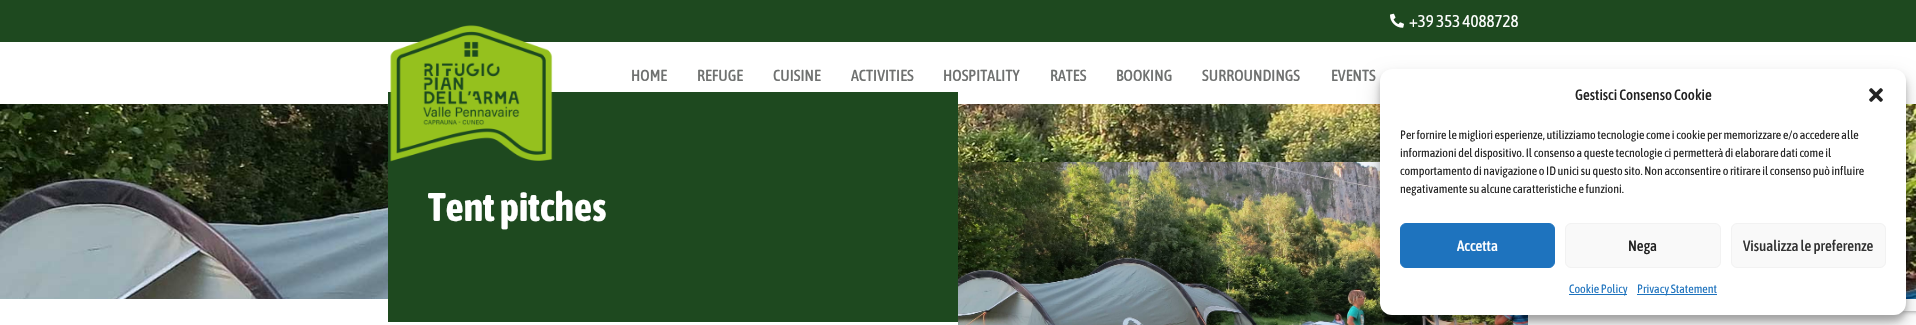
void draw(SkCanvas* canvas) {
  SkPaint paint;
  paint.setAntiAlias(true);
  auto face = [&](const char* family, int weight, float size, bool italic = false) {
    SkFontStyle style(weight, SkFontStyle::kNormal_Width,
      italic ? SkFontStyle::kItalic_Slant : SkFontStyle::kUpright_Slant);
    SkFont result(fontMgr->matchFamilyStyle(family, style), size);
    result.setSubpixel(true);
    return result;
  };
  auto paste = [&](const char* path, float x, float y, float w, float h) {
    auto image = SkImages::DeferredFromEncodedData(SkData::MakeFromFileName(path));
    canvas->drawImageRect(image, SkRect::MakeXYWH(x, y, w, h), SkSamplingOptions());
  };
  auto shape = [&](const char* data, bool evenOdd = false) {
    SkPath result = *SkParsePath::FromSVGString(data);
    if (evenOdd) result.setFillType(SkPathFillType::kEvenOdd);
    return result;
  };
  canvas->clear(0xffffffff);
  paint.setColor(0xff1e491f);
  canvas->drawRect(SkRect::MakeXYWH(0, 0, 1916, 42), paint);
  paste("img/1.png", 1390, 13, 14, 15);
  paste("img/3.png", 0, 104, 1916, 195);
  canvas->drawRect(SkRect::MakeXYWH(388, 92, 570, 230), paint);
  paste("img/2.png", 390, 25, 163, 137);
  paste("img/4.png", 958, 162, 570, 163);
  paint.setColor(0x3b000000);
  paint.setMaskFilter(SkMaskFilter::MakeBlur(kNormal_SkBlurStyle, 3));
  canvas->drawRoundRect(SkRect::MakeXYWH(1380, 75, 526, 246), 12, 12, paint);
  paint.setMaskFilter(nullptr);
  paint.setColor(0x30000000);
  paint.setMaskFilter(SkMaskFilter::MakeBlur(kNormal_SkBlurStyle, 10));
  canvas->drawRoundRect(SkRect::MakeXYWH(1380, 79, 526, 246), 12, 12, paint);
  paint.setMaskFilter(nullptr);
  canvas->save();
  canvas->clipPath(shape("M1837 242H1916V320H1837ZM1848 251H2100C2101 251 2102 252 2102 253V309C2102 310 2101 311 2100 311H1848C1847 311 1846 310 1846 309V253C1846 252 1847 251 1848 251Z", true), true);
  paint.setColor(0xff808080);
  paint.setMaskFilter(SkMaskFilter::MakeBlur(kNormal_SkBlurStyle, 2.5f));
  canvas->drawRoundRect(SkRect::MakeXYWH(1846, 251, 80, 60), 2, 2, paint);
  paint.setMaskFilter(nullptr);
  canvas->restore();
  paint.setColor(0xffffffff);
  canvas->drawRoundRect(SkRect::MakeXYWH(1380, 69, 526, 246), 12, 12, paint);
  paste("img/5.png", 1869, 88, 14, 14);
  paint.setColor(0xff1e73be);
  canvas->drawRoundRect(SkRect::MakeXYWH(1400.5f, 223.5f, 154, 44), 5.5f, 5.5f, paint);
  paint.setStroke(true);
  paint.setStrokeWidth(1);
  canvas->drawRoundRect(SkRect::MakeXYWH(1400.5f, 223.5f, 154, 44), 5.5f, 5.5f, paint);
  paint.setStroke(false);
  paint.setColor(0xfff9f9f9);
  canvas->drawRoundRect(SkRect::MakeXYWH(1565.5f, 223.5f, 155, 44), 5.5f, 5.5f, paint);
  paint.setStroke(true);
  paint.setColor(0xfff2f2f2);
  canvas->drawRoundRect(SkRect::MakeXYWH(1565.5f, 223.5f, 155, 44), 5.5f, 5.5f, paint);
  paint.setStroke(false);
  paint.setColor(0xfff9f9f9);
  canvas->drawRoundRect(SkRect::MakeXYWH(1731.5f, 223.5f, 154, 44), 5.5f, 5.5f, paint);
  paint.setStroke(true);
  paint.setColor(0xfff2f2f2);
  canvas->drawRoundRect(SkRect::MakeXYWH(1731.5f, 223.5f, 154, 44), 5.5f, 5.5f, paint);
  paint.setStroke(false);
  paint.setColor(0xff1e73be);
  canvas->drawRect(SkRect::MakeXYWH(1569, 294, 58, 1), paint);
  canvas->drawRect(SkRect::MakeXYWH(1637, 294, 80, 1), paint);
  auto f0 = face("Asap Condensed", 400, 17);
  paint.setColor(0xffffffff);
  canvas->drawString("+39 353 4088728", 1409, 27, f0, paint);
  auto f1 = face("Asap Condensed", 500, 16);
  paint.setColor(0xff6f7170);
  {
    const struct { const char* s; float x, y; } items[] = {
      {"HOME", 631, 81},
      {"REFUGE", 697, 81},
      {"CUISINE", 773, 81},
      {"ACTIVITIES", 851, 81},
      {"HOSPITALITY", 943, 81},
      {"RATES", 1050, 81},
      {"BOOKING", 1116, 81},
      {"SURROUNDINGS", 1202, 81},
      {"EVENTS", 1331, 81},
    };
    for (auto [s, x, y] : items) {
      canvas->drawString(s, x, y, f1, paint);
    }
  }
  auto f2 = face("Asap Condensed", 700, 40);
  paint.setColor(0xffffffff);
  canvas->drawString("Tent pitches", 428, 221, f2, paint);
  auto f3 = face("Asap Condensed", 500, 15);
  paint.setColor(0xff222222);
  canvas->drawString("Gestisci Consenso Cookie", 1575, 100, f3, paint);
  auto f4 = face("Asap Condensed", 400, 12);
  {
    const struct { const char* s; float x, y; } items[] = {
      {"Per fornire le migliori esperienze, utilizziamo tecnologie come i cookie per memorizzare e/o accedere alle", 1400, 139},
      {"informazioni del dispositivo. Il consenso a queste tecnologie ci permetterà di elaborare dati come il", 1400, 157},
      {"comportamento di navigazione o ID unici su questo sito. Non acconsentire o ritirare il consenso può influire", 1400, 175},
      {"negativamente su alcune caratteristiche e funzioni.", 1400, 193},
    };
    for (auto [s, x, y] : items) {
      canvas->drawString(s, x, y, f4, paint);
    }
  }
  paint.setColor(0xffffffff);
  canvas->drawString("Accetta", 1457, 251, f3, paint);
  paint.setColor(0xff222222);
  canvas->drawString("Nega", 1628, 251, f3, paint);
  paint.setColor(0xff333333);
  canvas->drawString("Visualizza le preferenze", 1743, 251, f3, paint);
  paint.setColor(0xff1e73be);
  canvas->drawString("Cookie Policy", 1569, 293, f4, paint);
  canvas->drawString("Privacy Statement", 1637, 293, f4, paint);
}
